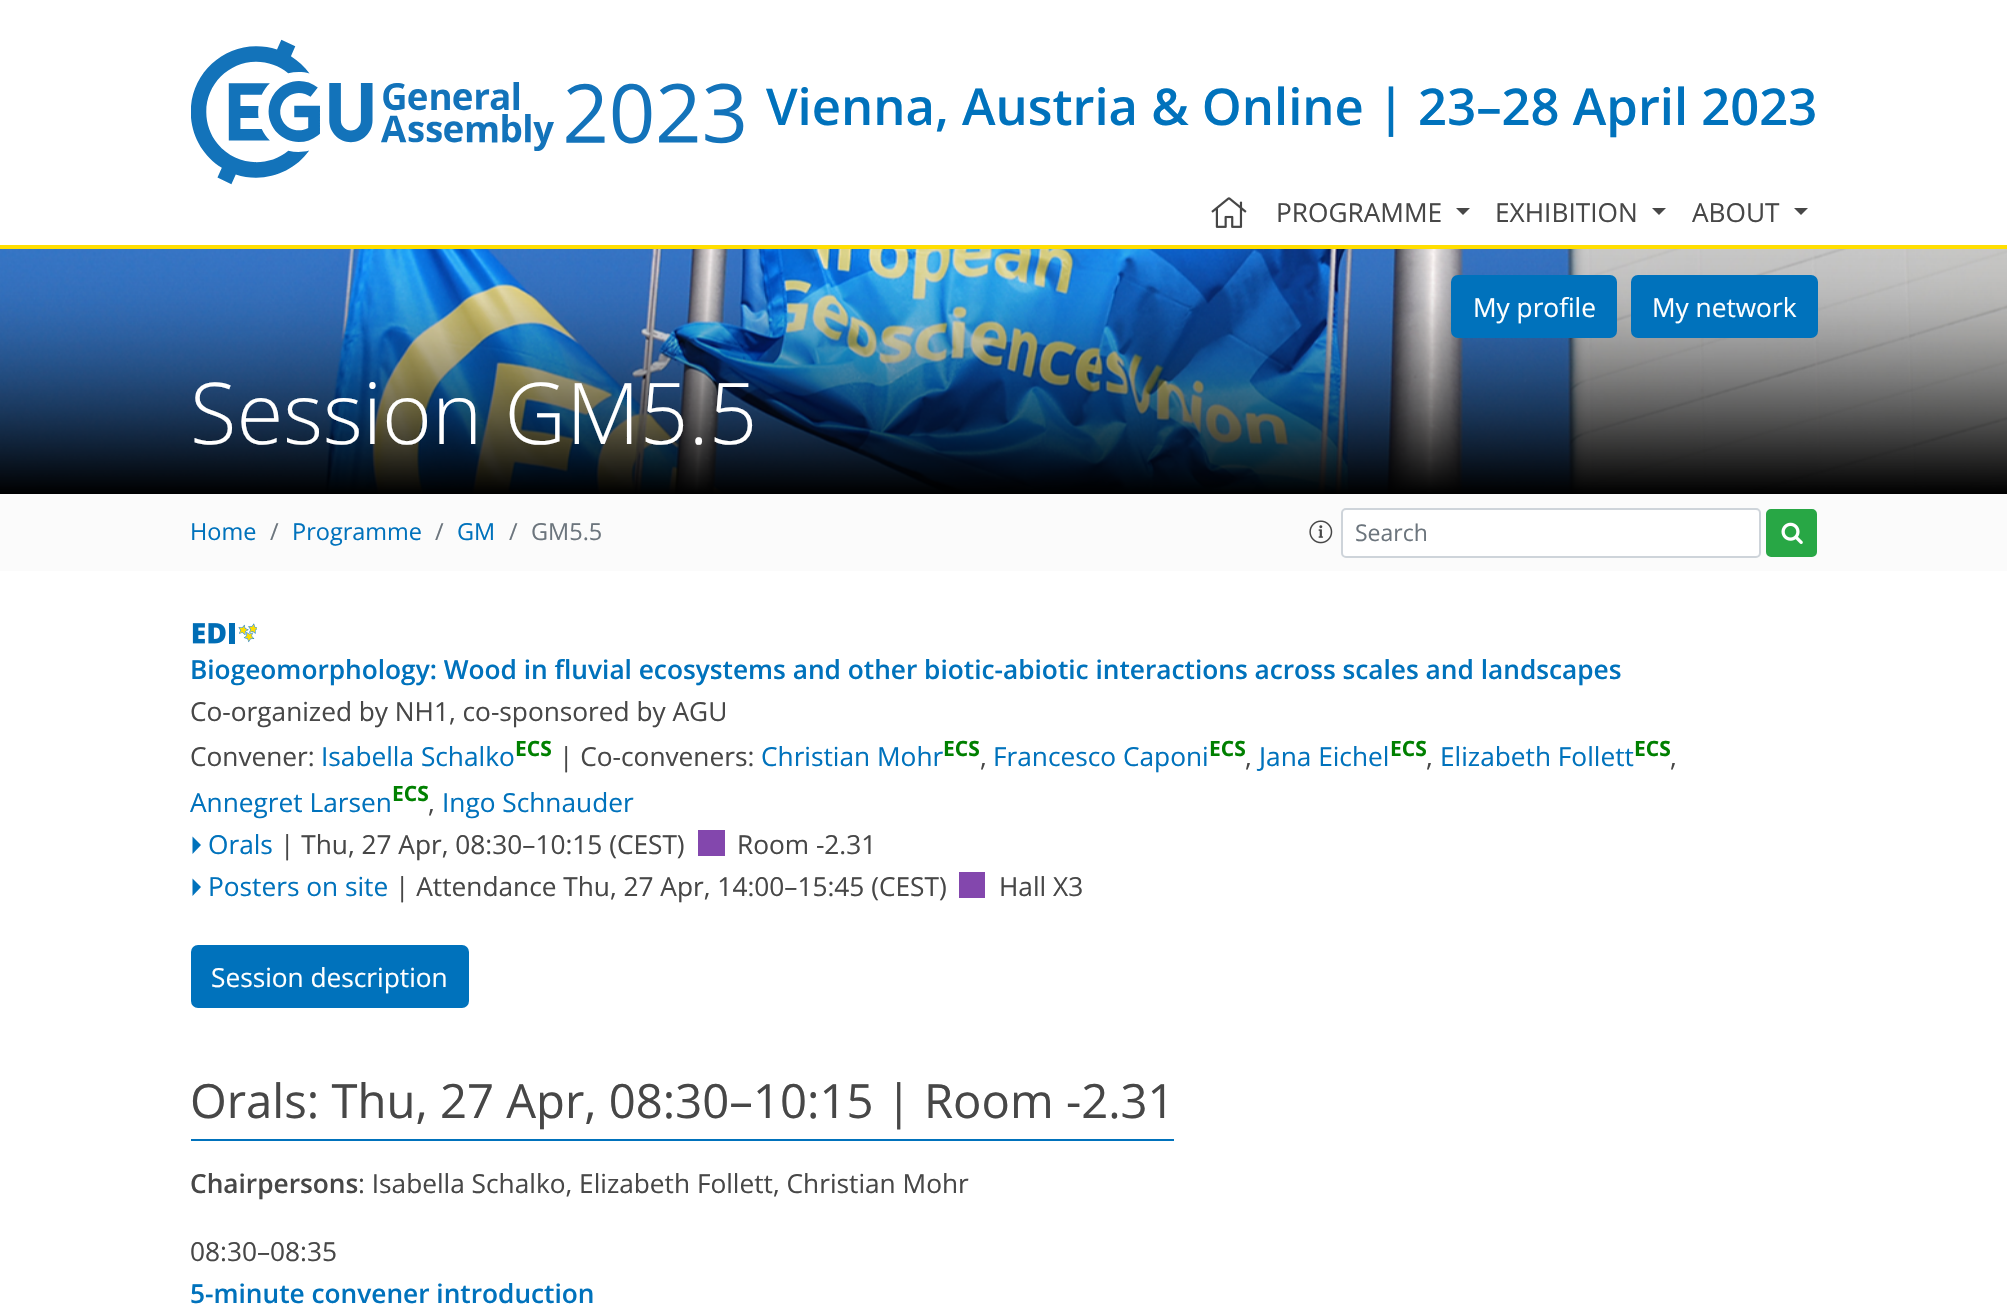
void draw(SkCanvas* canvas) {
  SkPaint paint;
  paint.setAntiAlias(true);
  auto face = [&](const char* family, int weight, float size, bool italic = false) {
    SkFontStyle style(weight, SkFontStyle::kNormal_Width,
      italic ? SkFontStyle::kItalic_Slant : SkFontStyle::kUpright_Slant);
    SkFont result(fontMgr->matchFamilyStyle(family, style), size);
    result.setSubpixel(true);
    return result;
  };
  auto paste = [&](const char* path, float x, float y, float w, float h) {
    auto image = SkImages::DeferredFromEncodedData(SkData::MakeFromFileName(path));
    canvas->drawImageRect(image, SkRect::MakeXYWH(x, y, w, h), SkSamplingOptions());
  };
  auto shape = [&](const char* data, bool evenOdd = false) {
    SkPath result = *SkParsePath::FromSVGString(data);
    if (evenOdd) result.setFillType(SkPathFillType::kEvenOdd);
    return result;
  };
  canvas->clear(0xffffffff);
  paint.setColor(0xffffde00);
  canvas->drawRect(SkRect::MakeXYWH(0, 245, 2007, 4), paint);
  paste("img/1.png", 191, 39, 553, 146);
  paste("img/2.png", 1211, 197, 36, 31);
  paint.setColor(0xff474747);
  canvas->drawPath(shape("M1456 208H1470L1463 215Z"), paint);
  canvas->drawPath(shape("M1652 208H1666L1659 215Z"), paint);
  canvas->drawPath(shape("M1794 208H1808L1801 215Z"), paint);
  paste("img/3.png", 0, 249, 2007, 245);
  paint.setColor(0xff0072bc);
  canvas->drawRoundRect(SkRect::MakeXYWH(1452, 276, 164, 61), 6, 6, paint);
  paint.setStroke(true);
  paint.setStrokeWidth(2);
  canvas->drawRoundRect(SkRect::MakeXYWH(1452, 276, 164, 61), 6, 6, paint);
  paint.setStroke(false);
  canvas->drawRoundRect(SkRect::MakeXYWH(1632, 276, 185, 61), 6, 6, paint);
  paint.setStroke(true);
  canvas->drawRoundRect(SkRect::MakeXYWH(1632, 276, 185, 61), 6, 6, paint);
  paint.setStroke(false);
  paint.setColor(0xfffbfbfb);
  canvas->drawRect(SkRect::MakeXYWH(0, 494, 2007, 77), paint);
  paste("img/4.png", 1309, 520, 24, 24);
  paint.setColor(0xffffffff);
  canvas->drawRoundRect(SkRect::MakeXYWH(1342, 509, 418, 48), 4, 4, paint);
  paint.setStroke(true);
  paint.setColor(0xffced4da);
  canvas->drawRoundRect(SkRect::MakeXYWH(1342, 509, 418, 48), 4, 4, paint);
  paint.setStroke(false);
  paint.setColor(0xff28a745);
  canvas->drawRoundRect(SkRect::MakeXYWH(1767, 510, 49, 46), 4, 4, paint);
  paint.setStroke(true);
  canvas->drawRoundRect(SkRect::MakeXYWH(1767, 510, 49, 46), 4, 4, paint);
  paste("img/5.png", 1781, 522, 22, 22);
  paste("img/6.png", 192, 623, 65, 21);
  paint.setStroke(false);
  paint.setColor(0xff0072bc);
  canvas->drawPath(shape("M192.5 854V836.5L201 845Z"), paint);
  paint.setColor(0xff8347ad);
  canvas->drawRect(SkRect::MakeXYWH(698, 830, 27, 26), paint);
  paint.setColor(0xff0072bc);
  canvas->drawPath(shape("M192.5 896V878.5L201 887Z"), paint);
  paint.setColor(0xff8347ad);
  canvas->drawRect(SkRect::MakeXYWH(959, 872, 26, 26), paint);
  paint.setColor(0xff0072bc);
  canvas->drawRoundRect(SkRect::MakeXYWH(192, 946, 276, 61), 6, 6, paint);
  paint.setStroke(true);
  canvas->drawRoundRect(SkRect::MakeXYWH(192, 946, 276, 61), 6, 6, paint);
  paint.setStroke(false);
  canvas->drawRect(SkRect::MakeXYWH(191, 1139, 983, 2), paint);
  auto f0 = face("Open Sans", 600, 50.75f);
  canvas->drawString("Vienna, Austria & Online | 23–28 April 2023", 766, 125, f0, paint);
  auto f1 = face("Open Sans", 400, 26.25f);
  paint.setColor(0xff474747);
  {
    const struct { const char* s; float x, y; } items[] = {
      {"PROGRAMME", 1276, 222},
      {"EXHIBITION", 1495, 222},
      {"ABOUT", 1692, 222},
    };
    for (auto [s, x, y] : items) {
      canvas->drawString(s, x, y, f1, paint);
    }
  }
  paint.setColor(0xffffffff);
  canvas->drawString("My profile", 1473, 317, f1, paint);
  canvas->drawString("My network", 1652, 317, f1, paint);
  auto f2 = face("Open Sans", 300, 85.25f);
  canvas->drawString("Session GM5.5", 190, 444, f2, paint);
  auto f3 = face("Open Sans", 400, 23.5f);
  paint.setColor(0xff0072bc);
  canvas->drawString("Home", 190, 540, f3, paint);
  paint.setColor(0xff6c757d);
  canvas->drawString("/", 270, 540, f3, paint);
  paint.setColor(0xff0072bc);
  canvas->drawString("Programme", 292, 540, f3, paint);
  paint.setColor(0xff6c757d);
  canvas->drawString("/", 435, 540, f3, paint);
  paint.setColor(0xff0072bc);
  canvas->drawString("GM", 457, 540, f3, paint);
  paint.setColor(0xff6c757d);
  canvas->drawString("/", 509, 540, f3, paint);
  canvas->drawString("GM5.5", 531, 540, f3, paint);
  auto f4 = face("Open Sans", 400, 23);
  canvas->drawString("Search", 1355, 541, f4, paint);
  auto f5 = face("Open Sans", 600, 26.25f);
  paint.setColor(0xff0072bc);
  canvas->drawString("Biogeomorphology: Wood in fluvial ecosystems and other biotic-abiotic interactions across scales and landscapes", 190, 679, f5, paint);
  paint.setColor(0xff474747);
  canvas->drawString("Co-organized by NH1, co-sponsored by AGU", 190, 721, f1, paint);
  canvas->drawString("Convener:", 190, 766, f1, paint);
  paint.setColor(0xff0072bc);
  canvas->drawString("Isabella Schalko", 321, 766, f1, paint);
  auto f6 = face("Open Sans", 700, 21);
  paint.setColor(0xff008000);
  canvas->drawString("ECS", 515, 756, f6, paint);
  paint.setColor(0xff474747);
  canvas->drawString("| Co-conveners:", 559, 766, f1, paint);
  paint.setColor(0xff0072bc);
  canvas->drawString("Christian Mohr", 761, 766, f1, paint);
  paint.setColor(0xff008000);
  canvas->drawString("ECS", 943, 756, f6, paint);
  paint.setColor(0xff474747);
  canvas->drawString(",", 980, 766, f1, paint);
  paint.setColor(0xff0072bc);
  canvas->drawString("Francesco Caponi", 993, 766, f1, paint);
  paint.setColor(0xff008000);
  canvas->drawString("ECS", 1209, 756, f6, paint);
  paint.setColor(0xff474747);
  canvas->drawString(",", 1245, 766, f1, paint);
  paint.setColor(0xff0072bc);
  canvas->drawString("Jana Eichel", 1259, 766, f1, paint);
  paint.setColor(0xff008000);
  canvas->drawString("ECS", 1390, 756, f6, paint);
  paint.setColor(0xff474747);
  canvas->drawString(",", 1426, 766, f1, paint);
  paint.setColor(0xff0072bc);
  canvas->drawString("Elizabeth Follett", 1440, 766, f1, paint);
  paint.setColor(0xff008000);
  canvas->drawString("ECS", 1634, 756, f6, paint);
  paint.setColor(0xff474747);
  canvas->drawString(",", 1670, 766, f1, paint);
  paint.setColor(0xff0072bc);
  canvas->drawString("Annegret Larsen", 190, 812, f1, paint);
  paint.setColor(0xff008000);
  canvas->drawString("ECS", 392, 801, f6, paint);
  paint.setColor(0xff474747);
  canvas->drawString(",", 428, 812, f1, paint);
  paint.setColor(0xff0072bc);
  canvas->drawString("Ingo Schnauder", 442, 812, f1, paint);
  canvas->drawString("Orals", 208, 854, f1, paint);
  paint.setColor(0xff474747);
  canvas->drawString("| Thu, 27 Apr, 08:30–10:15 (CEST)", 280, 854, f1, paint);
  canvas->drawString("Room -2.31", 737, 854, f1, paint);
  paint.setColor(0xff0072bc);
  canvas->drawString("Posters on site", 208, 896, f1, paint);
  paint.setColor(0xff474747);
  canvas->drawString("| Attendance Thu, 27 Apr, 14:00–15:45 (CEST)", 395, 896, f1, paint);
  canvas->drawString("Hall X3", 999, 896, f1, paint);
  paint.setColor(0xffffffff);
  canvas->drawString("Session description", 211, 987, f1, paint);
  auto f7 = face("Open Sans", 400, 47.25f);
  paint.setColor(0xff474747);
  canvas->drawString("Orals: Thu, 27 Apr, 08:30–10:15 | Room -2.31", 190, 1118, f7, paint);
  canvas->drawString("Chairpersons", 190, 1193, f5, paint);
  canvas->drawString(": Isabella Schalko, Elizabeth Follett, Christian Mohr", 358, 1193, f1, paint);
  canvas->drawString("08:30–08:35", 190, 1261, f1, paint);
  paint.setColor(0xff0072bc);
  canvas->drawString("5-minute convener introduction", 190, 1303, f5, paint);
}
